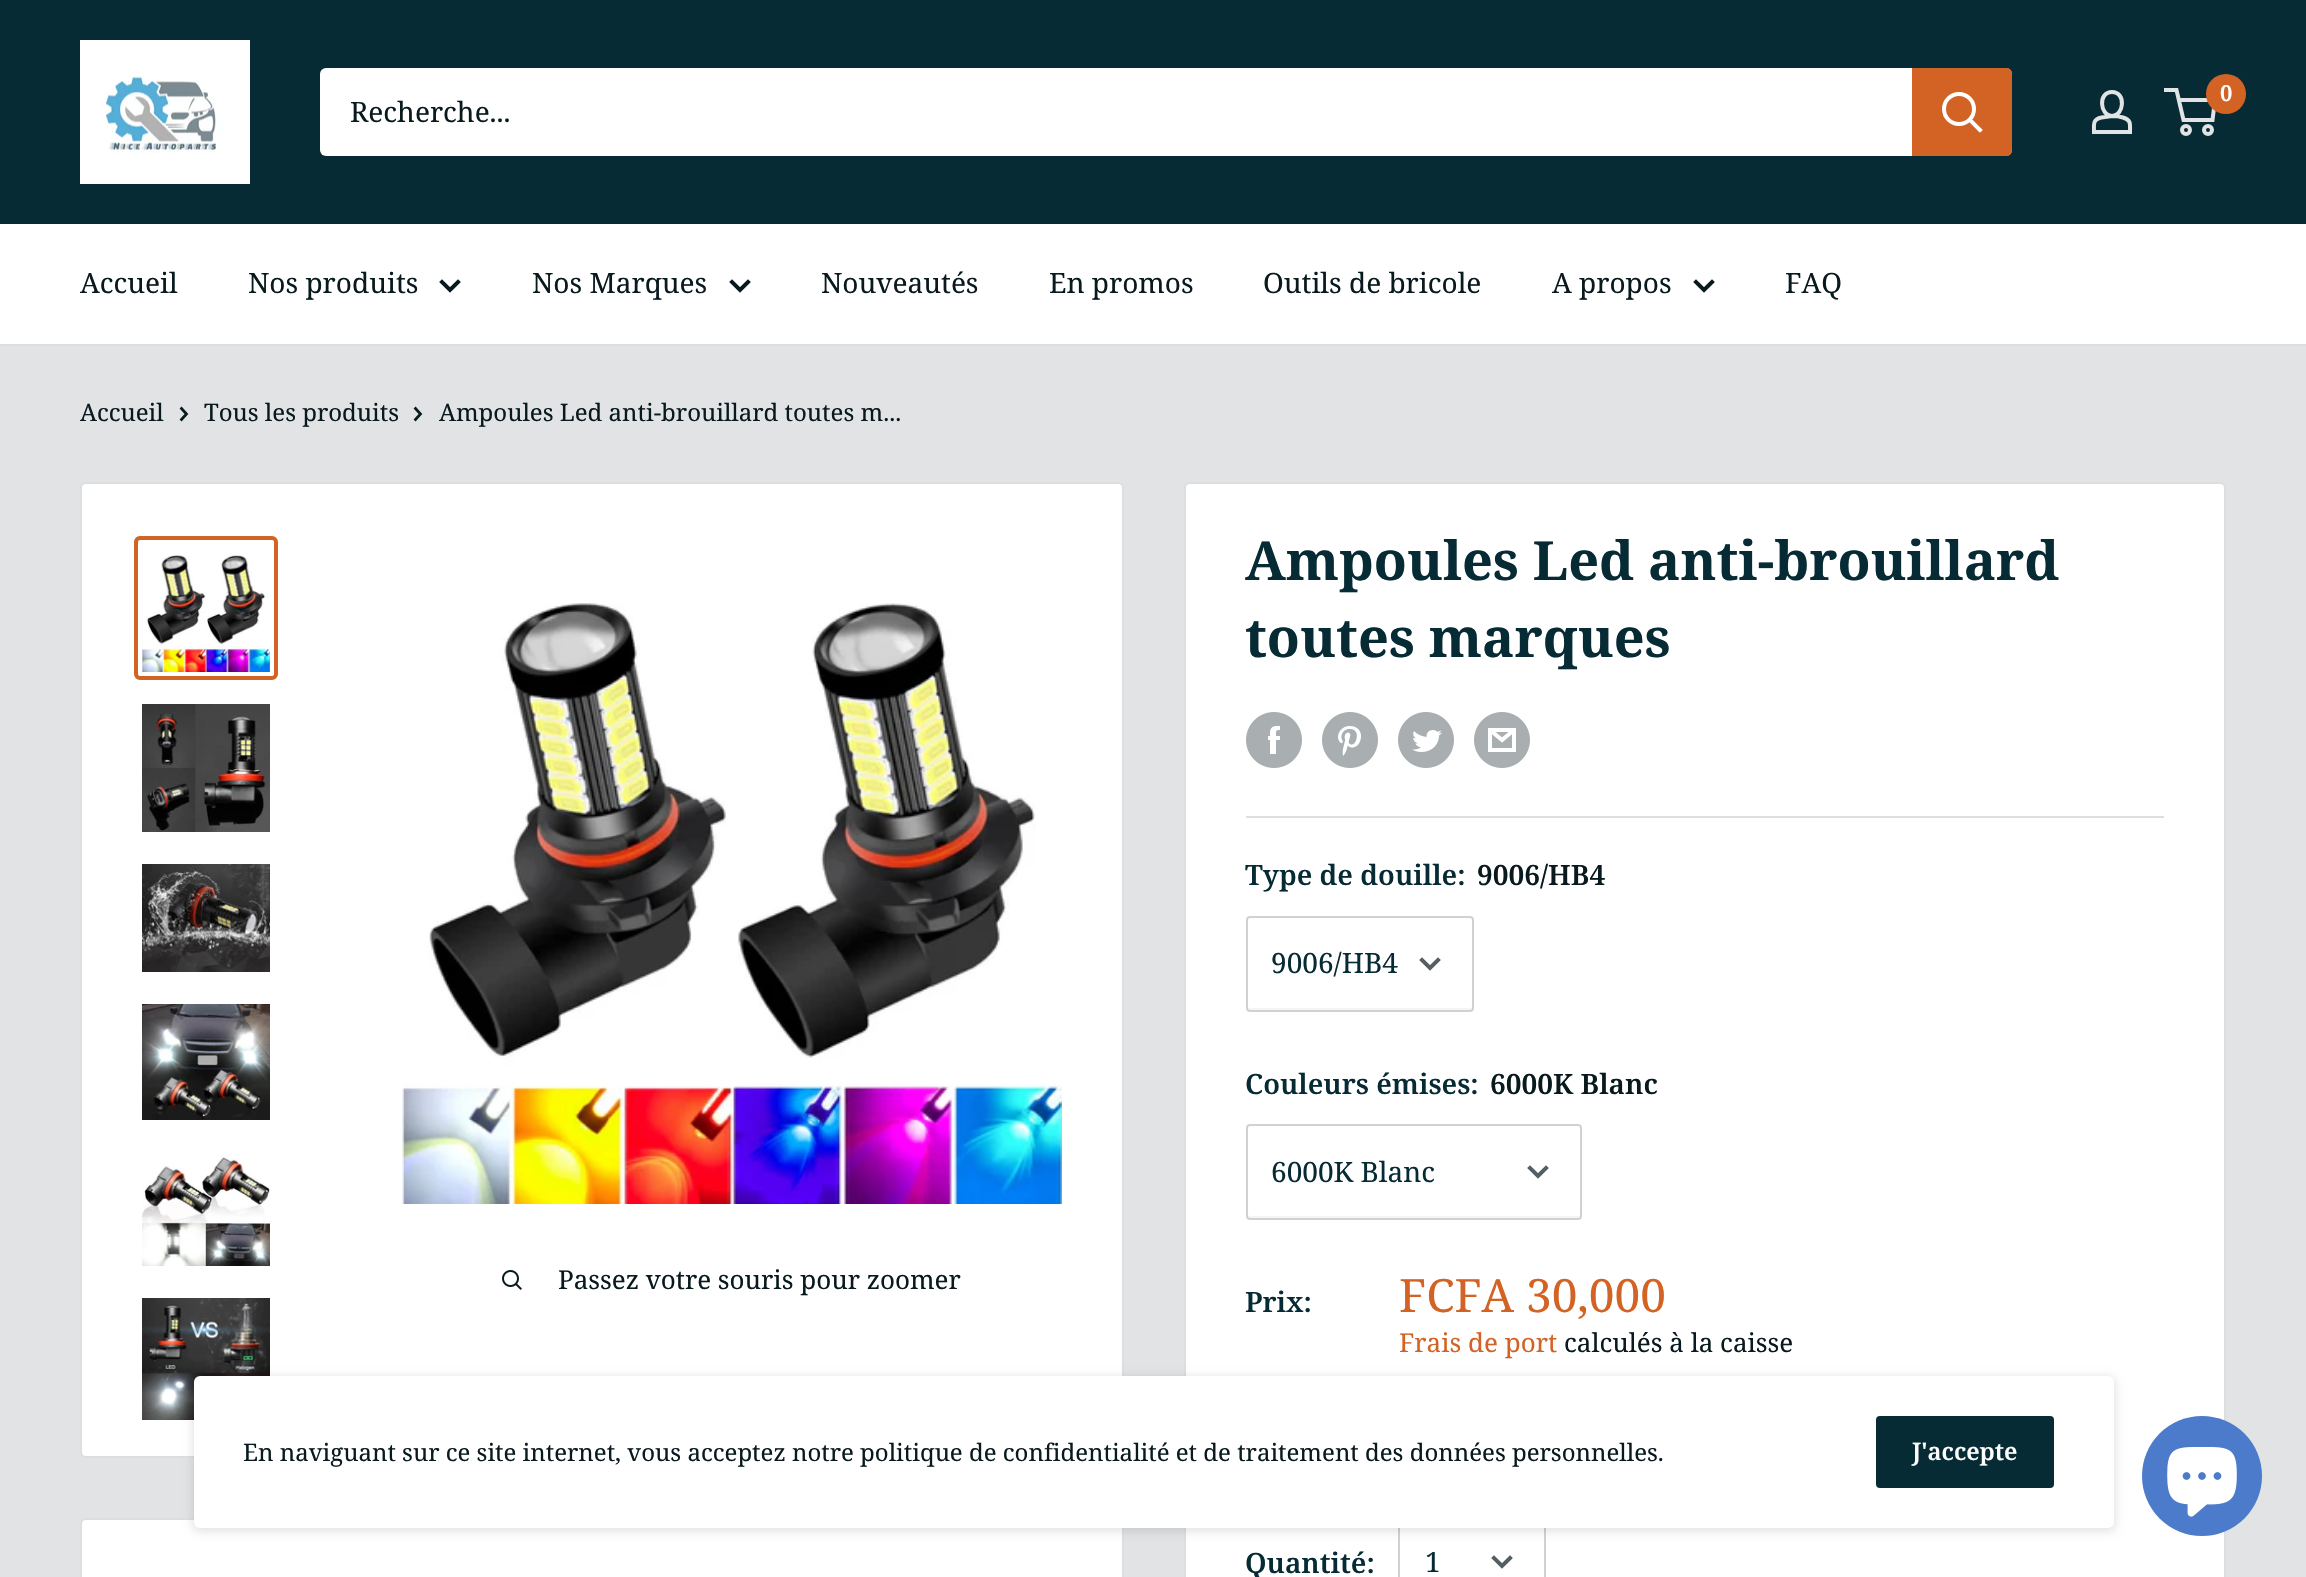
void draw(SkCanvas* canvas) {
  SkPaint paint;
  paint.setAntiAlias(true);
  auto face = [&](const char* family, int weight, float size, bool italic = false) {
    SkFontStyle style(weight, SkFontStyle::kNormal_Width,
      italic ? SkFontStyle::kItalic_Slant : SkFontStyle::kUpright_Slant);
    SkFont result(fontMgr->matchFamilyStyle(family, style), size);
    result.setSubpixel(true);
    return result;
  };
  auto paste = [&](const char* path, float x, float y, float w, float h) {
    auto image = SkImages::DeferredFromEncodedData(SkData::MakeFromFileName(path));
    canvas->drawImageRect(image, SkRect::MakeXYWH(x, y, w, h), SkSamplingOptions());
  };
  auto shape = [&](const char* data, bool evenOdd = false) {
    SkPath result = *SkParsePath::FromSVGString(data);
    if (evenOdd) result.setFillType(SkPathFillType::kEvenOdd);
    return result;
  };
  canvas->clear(0xffe1e3e4);
  paint.setColor(0xff062b34);
  canvas->drawRect(SkRect::MakeXYWH(0, 0, 2306, 224), paint);
  paste("img/1.png", 80, 40, 170, 144);
  paint.setStroke(true);
  paint.setStrokeWidth(4);
  paint.setColor(0xffe1e3e4);
  canvas->drawPath(shape("M2112 116C2116 116 2119.5 116.5 2123 117.5C2131.5 120 2130 124.5 2130 132H2094C2094 124 2092.5 119.5 2101.5 117.5ZM2112 116C2100 116 2097.5 92 2112 92C2126.5 92 2124 116 2112 116Z"), paint);
  canvas->drawCircle(2186, 130, 4, paint);
  canvas->drawCircle(2208, 130, 4, paint);
  canvas->drawPath(shape("M2178.5 100H2215L2212.5 120H2183.5L2176.5 90H2164"), paint);
  paint.setStroke(false);
  paint.setColor(0xffd36225);
  canvas->drawCircle(2226, 94, 20, paint);
  paint.setColor(0xffffffff);
  canvas->drawRoundRect(SkRect::MakeXYWH(320, 68, 1692, 88), 6, 6, paint);
  paint.setColor(0xffd36225);
  canvas->drawPath(shape("M1912 68H2006C2009.5 68 2012 70.5 2012 74V150C2012 153.5 2009.5 156 2006 156H1912Z"), paint);
  paint.setStroke(true);
  paint.setStrokeCap(SkPaint::kSquare_Cap);
  paint.setColor(0xffffffff);
  canvas->drawPath(shape("M1980 130L1970 120"), paint);
  paint.setStrokeCap(SkPaint::kButt_Cap);
  canvas->drawCircle(1959, 109, 15, paint);
  paint.setStroke(false);
  canvas->drawRect(SkRect::MakeXYWH(0, 224, 2306, 120), paint);
  paint.setColor(0xffdcdfe1);
  canvas->drawRect(SkRect::MakeXYWH(0, 344, 2306, 2), paint);
  paint.setStroke(true);
  paint.setStrokeCap(SkPaint::kSquare_Cap);
  paint.setColor(0xff091a1e);
  canvas->drawPath(shape("M458 282L450 290L442 282"), paint);
  canvas->drawPath(shape("M748 282L740 290L732 282"), paint);
  canvas->drawPath(shape("M1712 282L1704 290L1696 282"), paint);
  paint.setStrokeWidth(2.7f);
  canvas->drawPath(shape("M181.5 408.5L186.5 414L181.5 419.5"), paint);
  canvas->drawPath(shape("M415.5 408.5L420.5 414L415.5 419.5"), paint);
  paint.setStroke(false);
  paint.setColor(0xffffffff);
  canvas->drawRoundRect(SkRect::MakeXYWH(81, 483, 1042, 974), 5, 5, paint);
  paint.setStroke(true);
  paint.setStrokeWidth(2);
  paint.setStrokeCap(SkPaint::kButt_Cap);
  paint.setColor(0xffdcdfe1);
  canvas->drawRoundRect(SkRect::MakeXYWH(81, 483, 1042, 974), 5, 5, paint);
  paint.setStrokeWidth(4);
  paint.setColor(0xffd36225);
  canvas->drawRoundRect(SkRect::MakeXYWH(136, 538, 140, 140), 4, 4, paint);
  paste("img/2.png", 142, 554, 128, 118);
  paste("img/3.png", 142, 704, 128, 128);
  paste("img/4.png", 142, 864, 128, 108);
  paste("img/5.png", 142, 1004, 128, 116);
  paste("img/6.png", 142, 1157, 128, 109);
  paste("img/7.png", 142, 1298, 128, 122);
  paste("img/8.png", 402, 603, 660, 601);
  paste("img/9.png", 502, 1270, 20, 20);
  paint.setStroke(false);
  paint.setColor(0xffffffff);
  canvas->drawRoundRect(SkRect::MakeXYWH(1185, 483, 1040, 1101), 5, 5, paint);
  paint.setStroke(true);
  paint.setStrokeWidth(2);
  paint.setColor(0xffdcdfe1);
  canvas->drawRoundRect(SkRect::MakeXYWH(1185, 483, 1040, 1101), 5, 5, paint);
  paste("img/10.png", 1246, 712, 56, 56);
  paste("img/11.png", 1322, 712, 56, 56);
  paste("img/12.png", 1398, 712, 56, 56);
  paste("img/13.png", 1474, 712, 56, 56);
  paint.setStroke(false);
  canvas->drawRect(SkRect::MakeXYWH(1246, 816, 918, 2), paint);
  paint.setColor(0xfff5f5f6);
  canvas->drawPath(shape("M1248 1006V1008C1248 1009 1249 1010 1250 1010H1470C1471 1010 1472 1009 1472 1008V1006C1472 1007 1471 1008 1470 1008H1250C1249 1008 1248 1007 1248 1006Z"), paint);
  paint.setStroke(true);
  paint.setColor(0xffced2d5);
  canvas->drawRoundRect(SkRect::MakeXYWH(1247, 917, 226, 94), 3, 3, paint);
  paint.setStrokeWidth(4);
  paint.setStrokeCap(SkPaint::kSquare_Cap);
  paint.setColor(0xff535f62);
  canvas->drawPath(shape("M1438 960L1430 968L1422 960"), paint);
  paint.setStroke(false);
  paint.setColor(0xfff5f5f6);
  canvas->drawPath(shape("M1248 1214C1248 1216 1248 1218 1250 1218H1578C1580 1218 1580 1216 1580 1214C1580 1215 1579 1216 1578 1216H1250C1249 1216 1248 1215 1248 1214Z"), paint);
  paint.setStroke(true);
  paint.setStrokeWidth(2);
  paint.setStrokeCap(SkPaint::kButt_Cap);
  paint.setColor(0xffced2d5);
  canvas->drawRoundRect(SkRect::MakeXYWH(1247, 1125, 334, 94), 3, 3, paint);
  paint.setStrokeWidth(4);
  paint.setStrokeCap(SkPaint::kSquare_Cap);
  paint.setColor(0xff535f62);
  canvas->drawPath(shape("M1546 1168L1538 1176L1530 1168"), paint);
  paint.setStrokeWidth(2);
  paint.setStrokeCap(SkPaint::kButt_Cap);
  paint.setColor(0xffced2d5);
  canvas->drawRect(SkRect::MakeXYWH(1399, 1519, 146, 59), paint);
  paint.setStrokeWidth(4);
  paint.setStrokeCap(SkPaint::kSquare_Cap);
  paint.setColor(0xff535f62);
  canvas->drawPath(shape("M1510 1558L1502 1566L1494 1558"), paint);
  paint.setStroke(false);
  paint.setColor(0xffffffff);
  canvas->drawRoundRect(SkRect::MakeXYWH(81, 1519, 1042, 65), 5, 5, paint);
  paint.setStroke(true);
  paint.setStrokeWidth(2);
  paint.setStrokeCap(SkPaint::kButt_Cap);
  paint.setColor(0xffdcdfe1);
  canvas->drawRoundRect(SkRect::MakeXYWH(81, 1519, 1042, 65), 5, 5, paint);
  paint.setStroke(false);
  paint.setColor(0xff4b7bca);
  canvas->drawCircle(2202, 1476, 60, paint);
  paste("img/14.png", 2167, 1447, 70, 70);
  paint.setColor(0x1a000000);
  paint.setMaskFilter(SkMaskFilter::MakeBlur(kNormal_SkBlurStyle, 4));
  canvas->drawRoundRect(SkRect::MakeXYWH(192, 1376, 1924, 156), 8, 8, paint);
  paint.setMaskFilter(nullptr);
  paint.setColor(0xffffffff);
  canvas->drawRoundRect(SkRect::MakeXYWH(194, 1376, 1920, 152), 6, 6, paint);
  paint.setColor(0xff062b34);
  canvas->drawRoundRect(SkRect::MakeXYWH(1876, 1416, 178, 72), 4, 4, paint);
  auto f0 = face("Noto Serif", 600, 22);
  paint.setColor(0xffffffff);
  canvas->drawString("0", 2220, 101, f0, paint);
  auto f1 = face("Noto Serif", 400, 28);
  paint.setColor(0xff091a1e);
  {
    const struct { const char* s; float x, y; } items[] = {
      {"Recherche...", 350, 122},
      {"Accueil", 80, 293},
      {"Nos produits", 248, 293},
      {"Nos Marques", 532, 293},
      {"Nouveautés", 821, 293},
      {"En promos", 1049, 293},
      {"Outils de bricole", 1263, 293},
      {"A propos", 1552, 293},
      {"FAQ", 1785, 293},
    };
    for (auto [s, x, y] : items) {
      canvas->drawString(s, x, y, f1, paint);
    }
  }
  auto f2 = face("Noto Serif", 400, 24);
  {
    const struct { const char* s; float x, y; } items[] = {
      {"Accueil", 80, 421},
      {"Tous les produits", 204, 421},
      {"Ampoules Led anti-brouillard toutes m...", 439, 421},
    };
    for (auto [s, x, y] : items) {
      canvas->drawString(s, x, y, f2, paint);
    }
  }
  auto f3 = face("Noto Serif", 400, 26);
  canvas->drawString("Passez votre souris pour zoomer", 558, 1289, f3, paint);
  auto f4 = face("Noto Serif", 700, 54);
  paint.setColor(0xff062b34);
  canvas->drawString("Ampoules Led anti-brouillard", 1245, 580, f4, paint);
  canvas->drawString("toutes marques", 1245, 657, f4, paint);
  auto f5 = face("Noto Serif", 600, 28);
  canvas->drawString("Type de douille:", 1245, 885, f5, paint);
  paint.setColor(0xff091a1e);
  canvas->drawString("9006/HB4", 1477, 885, f5, paint);
  paint.setColor(0xff062b34);
  canvas->drawString("9006/HB4", 1271, 973, f1, paint);
  canvas->drawString("Couleurs émises:", 1245, 1094, f5, paint);
  paint.setColor(0xff091a1e);
  canvas->drawString("6000K Blanc", 1490, 1094, f5, paint);
  paint.setColor(0xff062b34);
  canvas->drawString("6000K Blanc", 1271, 1182, f1, paint);
  canvas->drawString("Prix:", 1245, 1312, f5, paint);
  auto f6 = face("Noto Serif", 400, 46);
  paint.setColor(0xffd36225);
  canvas->drawString("FCFA 30,000", 1399, 1312, f6, paint);
  canvas->drawString("Frais de port", 1399, 1352, f3, paint);
  paint.setColor(0xff091a1e);
  canvas->drawString("calculés à la caisse", 1564, 1352, f3, paint);
  paint.setColor(0xff062b34);
  canvas->drawString("Quantité:", 1245, 1573, f5, paint);
  canvas->drawString("1", 1425, 1572, f1, paint);
  paint.setColor(0xff091a1e);
  canvas->drawString("En naviguant sur ce site internet, vous acceptez notre politique de confidentialité et de traitement des données personnelles.", 243, 1461, f2, paint);
  auto f7 = face("Noto Serif", 600, 24);
  paint.setColor(0xffffffff);
  canvas->drawString("J'accepte", 1912, 1460, f7, paint);
}
